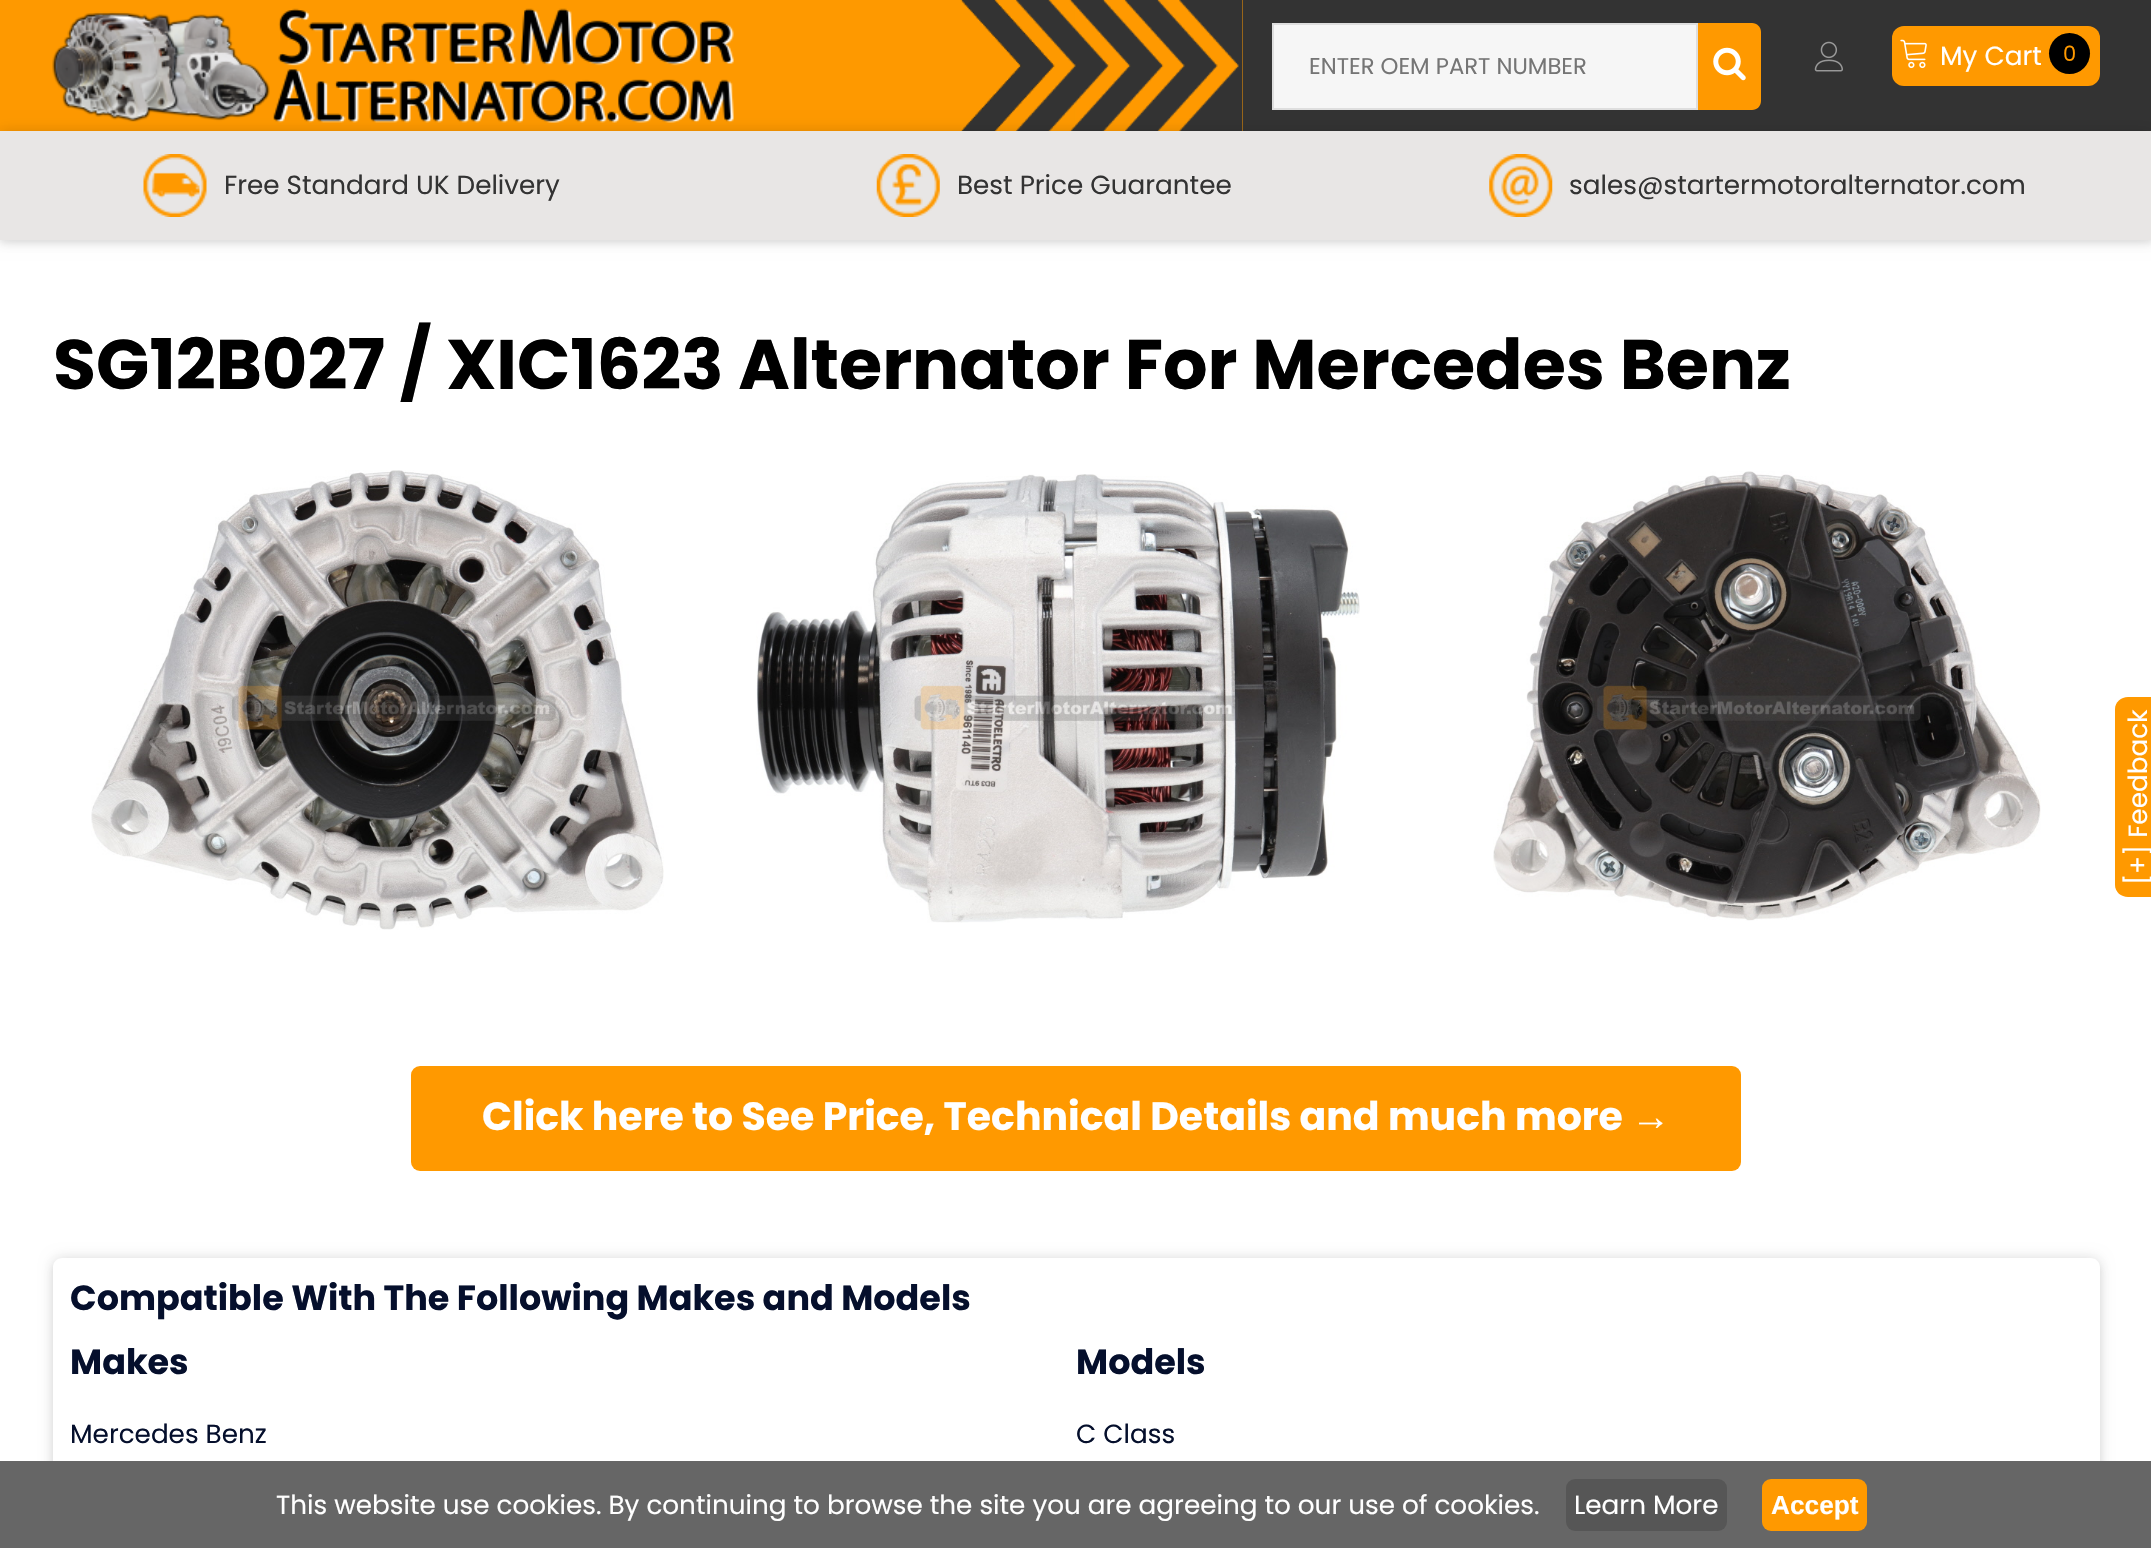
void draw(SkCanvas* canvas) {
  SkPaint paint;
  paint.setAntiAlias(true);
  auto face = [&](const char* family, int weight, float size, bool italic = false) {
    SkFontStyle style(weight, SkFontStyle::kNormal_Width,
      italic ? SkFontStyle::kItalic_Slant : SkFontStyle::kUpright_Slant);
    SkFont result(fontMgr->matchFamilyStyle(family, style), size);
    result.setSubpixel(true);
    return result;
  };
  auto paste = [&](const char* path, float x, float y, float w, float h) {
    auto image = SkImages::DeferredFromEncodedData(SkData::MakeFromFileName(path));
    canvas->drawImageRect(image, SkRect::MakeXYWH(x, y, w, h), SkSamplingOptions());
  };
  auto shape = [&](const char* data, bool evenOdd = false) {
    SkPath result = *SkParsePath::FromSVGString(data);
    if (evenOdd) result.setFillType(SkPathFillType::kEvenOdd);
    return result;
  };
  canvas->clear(0xffffffff);
  paste("img/1.png", 0, 0, 2151, 131);
  paint.setColor(0xffff9900);
  canvas->drawRect(SkRect::MakeXYWH(1076, 0, 167, 131), paint);
  paste("img/2.png", 960, 0, 283, 131);
  paste("img/3.png", 52, 8, 682, 115);
  paint.setColor(0xfff6f6f6);
  canvas->drawRect(SkRect::MakeXYWH(1273, 24, 424, 85), paint);
  paint.setStroke(true);
  paint.setStrokeWidth(2);
  paint.setColor(0xffdedede);
  canvas->drawRect(SkRect::MakeXYWH(1273, 24, 424, 85), paint);
  paint.setStroke(false);
  paint.setColor(0xffff9900);
  canvas->drawPath(shape("M1698 23H1752C1757 23 1761 27 1761 32V101C1761 106 1757 110 1752 110H1698Z"), paint);
  paste("img/4.png", 1713, 47, 33, 34);
  paste("img/5.png", 1814, 41, 29, 31);
  canvas->drawRoundRect(SkRect::MakeXYWH(1892, 26, 208, 60), 12, 12, paint);
  paste("img/6.png", 1900, 39, 27, 30);
  paint.setColor(0xff000000);
  canvas->drawCircle(2069.5f, 53.5f, 20.5f, paint);
  paint.setColor(0x14000000);
  paint.setMaskFilter(SkMaskFilter::MakeBlur(kNormal_SkBlurStyle, 3.5f));
  canvas->drawRect(SkRect::MakeXYWH(0, 135, 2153, 108), paint);
  paint.setMaskFilter(nullptr);
  paint.setColor(0x1f000000);
  paint.setMaskFilter(SkMaskFilter::MakeBlur(kNormal_SkBlurStyle, 7));
  canvas->drawRect(SkRect::MakeXYWH(0, 131, 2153, 109), paint);
  paint.setMaskFilter(nullptr);
  paint.setColor(0xffe8e6e5);
  canvas->drawRect(SkRect::MakeXYWH(0, 131, 2151, 109), paint);
  paste("img/7.png", 143, 154, 64, 63);
  paste("img/8.png", 876, 154, 64, 63);
  paste("img/9.png", 1489, 154, 64, 63);
  paste("img/10.png", 91, 470, 573, 460);
  paste("img/11.png", 756, 474, 604, 449);
  paste("img/12.png", 1493, 471, 548, 450);
  paint.setColor(0xffff9900);
  canvas->drawRoundRect(SkRect::MakeXYWH(411, 1066, 1330, 105), 9, 9, paint);
  canvas->save();
  canvas->clipPath(shape("M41 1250H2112V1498H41ZM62 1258H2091C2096 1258 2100 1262 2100 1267V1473C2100 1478 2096 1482 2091 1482H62C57 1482 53 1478 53 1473V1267C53 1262 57 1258 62 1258Z", true), true);
  paint.setColor(0x14000000);
  paint.setMaskFilter(SkMaskFilter::MakeBlur(kNormal_SkBlurStyle, 3.5f));
  canvas->drawRoundRect(SkRect::MakeXYWH(53, 1262, 2047, 224), 9, 9, paint);
  paint.setMaskFilter(nullptr);
  canvas->restore();
  canvas->save();
  canvas->clipPath(shape("M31 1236H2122V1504H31ZM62 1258H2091C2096 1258 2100 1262 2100 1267V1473C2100 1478 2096 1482 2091 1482H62C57 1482 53 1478 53 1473V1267C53 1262 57 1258 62 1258Z", true), true);
  paint.setColor(0x1f000000);
  paint.setMaskFilter(SkMaskFilter::MakeBlur(kNormal_SkBlurStyle, 7));
  canvas->drawRoundRect(SkRect::MakeXYWH(53, 1258, 2047, 224), 9, 9, paint);
  paint.setMaskFilter(nullptr);
  canvas->restore();
  paint.setColor(0xffff9900);
  canvas->drawPath(shape("M2115 885V709C2115 702 2121 697 2128 697H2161V897H2128C2121 897 2115 892 2115 885Z"), paint);
  paint.setColor(0xff666666);
  canvas->drawRect(SkRect::MakeXYWH(0, 1461, 2151, 87), paint);
  paint.setColor(0xff565656);
  canvas->drawRoundRect(SkRect::MakeXYWH(1566, 1479, 161, 52), 9, 9, paint);
  paint.setColor(0xffff9900);
  canvas->drawRoundRect(SkRect::MakeXYWH(1762, 1479, 105, 52), 9, 9, paint);
  auto f0 = face("Poppins", 400, 22.75f);
  paint.setColor(0xff757575);
  canvas->drawString("ENTER OEM PART NUMBER", 1309, 74, f0, paint);
  auto f1 = face("Poppins", 400, 26.25f);
  paint.setColor(0xffffffff);
  canvas->drawString("My Cart", 1940, 65, f1, paint);
  auto f2 = face("Poppins", 400, 21);
  paint.setColor(0xffff9900);
  canvas->drawString("0", 2063, 61, f2, paint);
  paint.setColor(0xff333333);
  {
    const struct { const char* s; float x, y; } items[] = {
      {"Free Standard UK Delivery", 224, 194},
      {"Best Price Guarantee", 957, 194},
      {"sales@startermotoralternator.com", 1569, 194},
    };
    for (auto [s, x, y] : items) {
      canvas->drawString(s, x, y, f1, paint);
    }
  }
  auto f3 = face("Poppins", 700, 70);
  paint.setColor(0xff000000);
  canvas->drawString("SG12B027 / XIC1623 Alternator For Mercedes Benz", 53, 389, f3, paint);
  auto f4 = face("Poppins", 700, 39.4f);
  paint.setColor(0xffffffff);
  canvas->drawString("Click here to See Price, Technical Details and much more", 482, 1130, f4, paint);
  auto f5 = face("Liberation Sans", 700, 39.4f);
  canvas->drawString("→", 1631, 1130, f5, paint);
  auto f6 = face("Poppins", 700, 35);
  paint.setColor(0xff050f2c);
  canvas->drawString("Compatible With The Following Makes and Models", 70, 1310, f6, paint);
  canvas->drawString("Makes", 70, 1374, f6, paint);
  canvas->drawString("Mercedes Benz", 70, 1443, f1, paint);
  canvas->drawString("Models", 1076, 1374, f6, paint);
  canvas->drawString("C Class", 1076, 1443, f1, paint);
  paint.setColor(0xffffffff);
  canvas->save();
  canvas->rotate(-90, 2147, 885);
  canvas->drawString("[+] Feedback", 2147, 885, f1, paint);
  canvas->restore();
  canvas->drawString("This website use cookies. By continuing to browse the site you are agreeing to our use of cookies.", 276, 1514, f1, paint);
  canvas->drawString("Learn More", 1574, 1514, f1, paint);
  auto f7 = face("Liberation Sans", 700, 26.25f);
  canvas->drawString("Accept", 1771, 1514, f7, paint);
}
